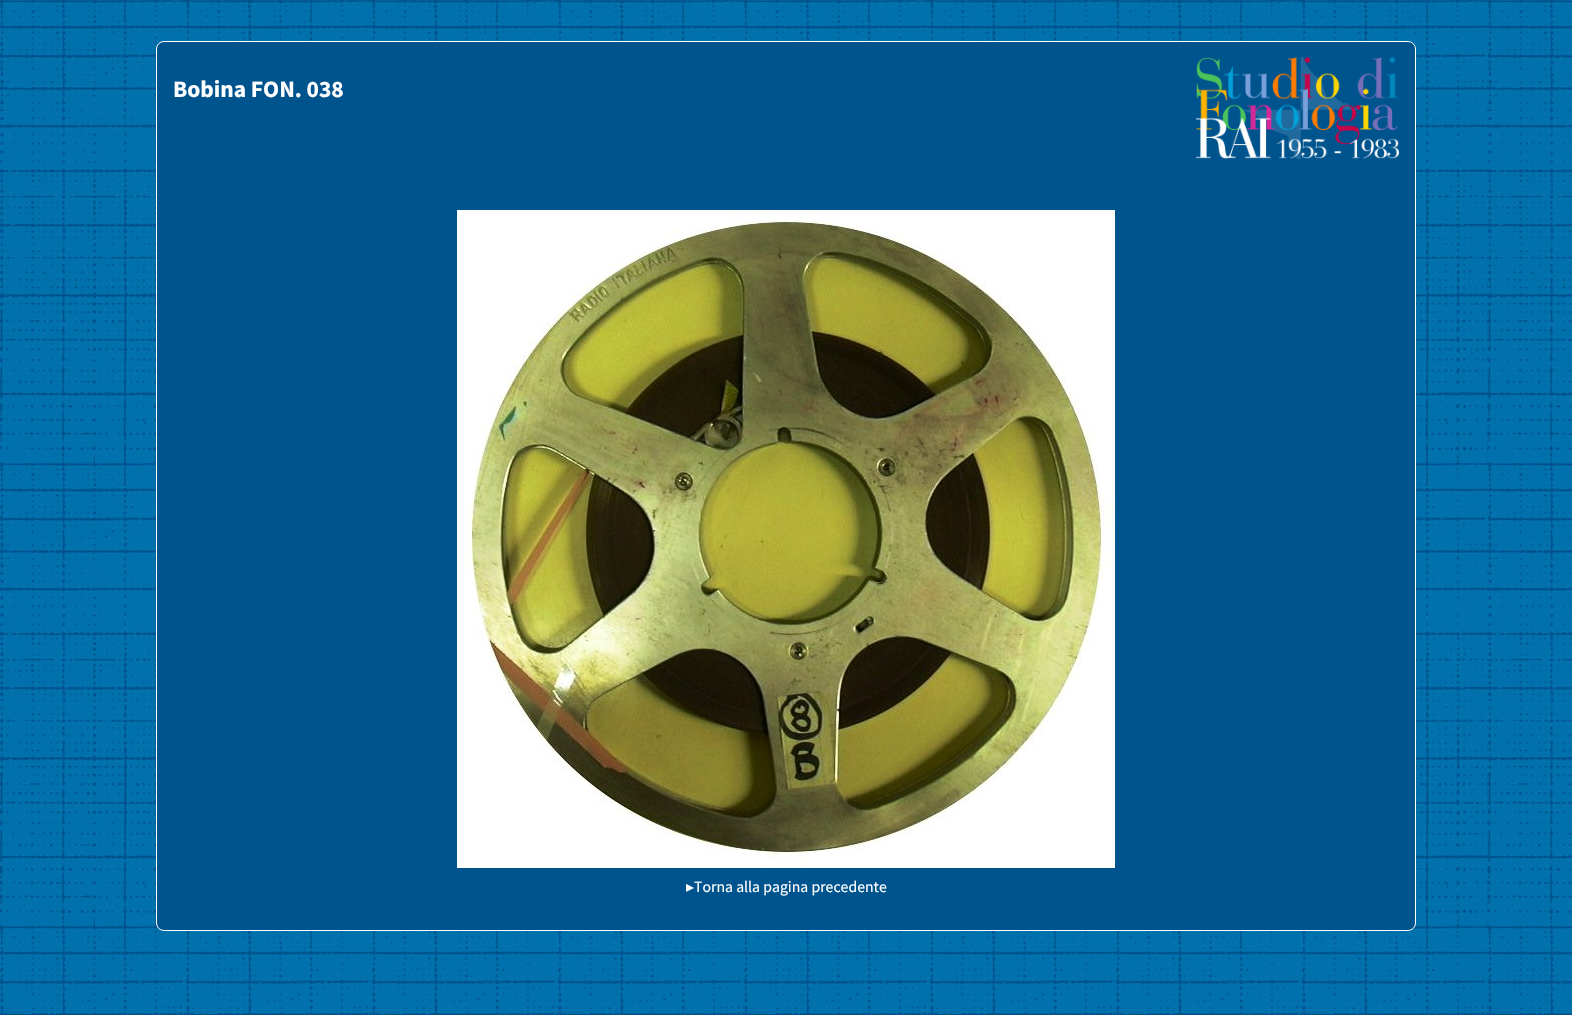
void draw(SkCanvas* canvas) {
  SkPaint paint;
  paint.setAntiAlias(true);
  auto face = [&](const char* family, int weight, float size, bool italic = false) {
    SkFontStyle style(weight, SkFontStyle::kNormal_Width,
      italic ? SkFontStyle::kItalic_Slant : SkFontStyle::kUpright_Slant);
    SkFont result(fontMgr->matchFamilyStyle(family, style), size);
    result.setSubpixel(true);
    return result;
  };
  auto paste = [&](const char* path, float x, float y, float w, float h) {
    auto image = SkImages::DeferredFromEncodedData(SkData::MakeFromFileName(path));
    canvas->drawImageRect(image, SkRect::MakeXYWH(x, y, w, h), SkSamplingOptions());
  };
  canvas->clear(0xffffffff);
  paste("img/1.png", 0, 0, 1572, 1015);
  paint.setColor(0xff00548e);
  canvas->drawRoundRect(SkRect::MakeXYWH(156.5f, 41.5f, 1259, 889), 7.5f, 7.5f, paint);
  paint.setStroke(true);
  paint.setStrokeWidth(1);
  paint.setColor(0xffffffff);
  canvas->drawRoundRect(SkRect::MakeXYWH(156.5f, 41.5f, 1259, 889), 7.5f, 7.5f, paint);
  paste("img/2.png", 1196, 57, 203, 102);
  canvas->drawRect(SkRect::MakeXYWH(457.5f, 210.5f, 657, 657), paint);
  paste("img/3.png", 458, 211, 656, 656);
  auto f0 = face("Source Sans Pro", 700, 23.5f);
  paint.setStroke(false);
  canvas->drawString("Bobina FON. 038", 173, 97, f0, paint);
  auto f1 = face("DejaVu Sans", 400, 15.75f);
  canvas->drawString("▸", 686, 892, f1, paint);
  auto f2 = face("Source Sans Pro", 400, 15.75f);
  canvas->drawString("Torna alla pagina precedente", 694, 892, f2, paint);
}
